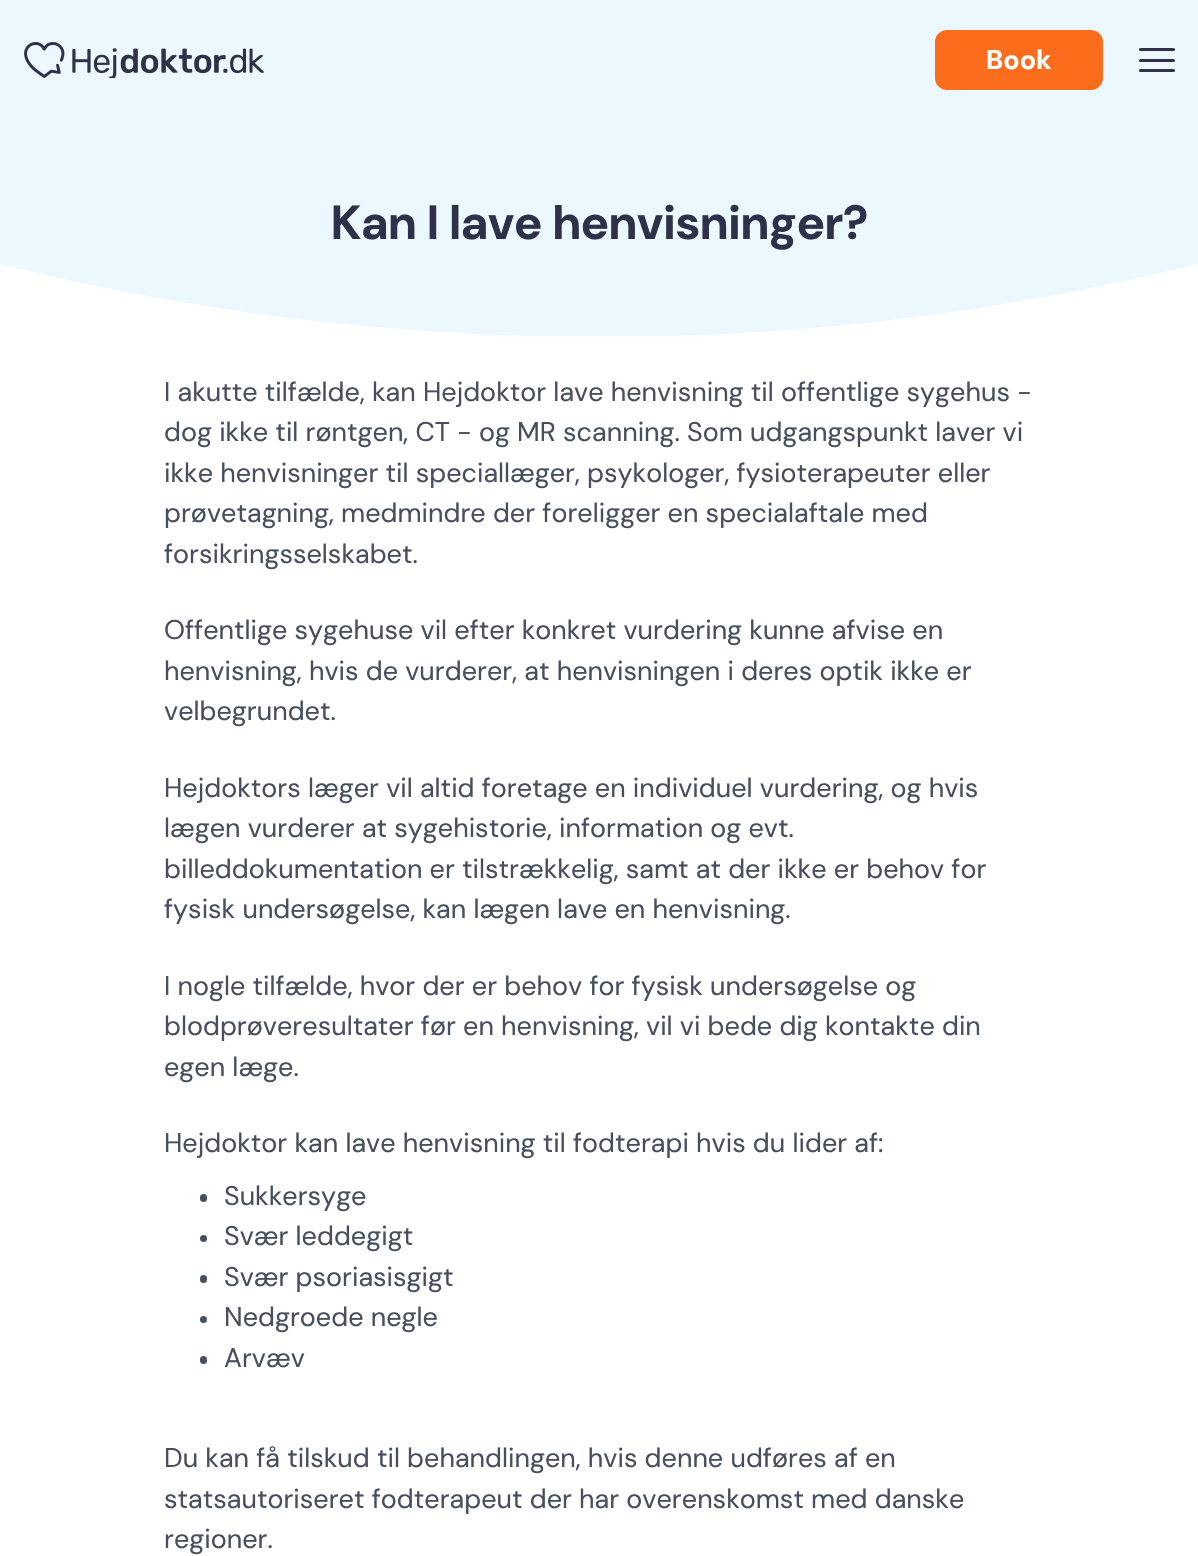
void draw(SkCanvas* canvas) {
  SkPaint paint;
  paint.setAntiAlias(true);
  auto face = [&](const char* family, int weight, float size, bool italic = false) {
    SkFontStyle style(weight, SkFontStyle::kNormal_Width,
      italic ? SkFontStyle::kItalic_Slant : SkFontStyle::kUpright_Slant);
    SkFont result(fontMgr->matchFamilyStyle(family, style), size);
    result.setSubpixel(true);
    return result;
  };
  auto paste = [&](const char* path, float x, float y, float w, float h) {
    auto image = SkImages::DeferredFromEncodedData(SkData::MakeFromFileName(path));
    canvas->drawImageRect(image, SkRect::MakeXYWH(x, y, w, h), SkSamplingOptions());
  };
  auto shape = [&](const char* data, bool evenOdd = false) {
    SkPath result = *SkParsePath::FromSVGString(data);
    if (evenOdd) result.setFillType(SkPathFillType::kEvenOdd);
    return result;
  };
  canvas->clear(0xffffffff);
  paint.setColor(0xffebf8ff);
  canvas->drawRect(SkRect::MakeXYWH(0, 0, 1198, 336), paint);
  paste("img/1.png", 24, 42, 240, 36);
  paint.setColor(0xfffb6c1c);
  canvas->drawRoundRect(SkRect::MakeXYWH(935, 30, 168, 60), 12, 12, paint);
  paint.setColor(0xff2e3149);
  canvas->drawRoundRect(SkRect::MakeXYWH(1139, 48, 36, 3), 1.5f, 1.5f, paint);
  canvas->drawRoundRect(SkRect::MakeXYWH(1139, 59, 36, 3), 1.5f, 1.5f, paint);
  canvas->drawRoundRect(SkRect::MakeXYWH(1139, 69, 36, 3), 1.5f, 1.5f, paint);
  canvas->save();
  canvas->clipRect(SkRect::MakeXYWH(0, 264, 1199, 72));
  paint.setColor(0xffffffff);
  canvas->drawPath(shape("M0 337V264C192 312 394 337 602 337ZM1198 264C1008 311 808 337 602 337H1198Z", true), paint);
  canvas->restore();
  paint.setColor(0xff454f5f);
  canvas->drawRoundRect(SkRect::MakeXYWH(200, 1194, 7, 8), 3.5f, 3.5f, paint);
  canvas->drawCircle(203.5f, 1238.5f, 3.5f, paint);
  canvas->drawRoundRect(SkRect::MakeXYWH(200, 1275, 7, 8), 3.5f, 3.5f, paint);
  canvas->drawCircle(203.5f, 1319.5f, 3.5f, paint);
  canvas->drawRoundRect(SkRect::MakeXYWH(200, 1356, 7, 8), 3.5f, 3.5f, paint);
  auto f0 = face("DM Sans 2", 700, 27);
  paint.setColor(0xffffffff);
  canvas->drawString("Book", 986, 69, f0, paint);
  auto f1 = face("DM Sans", 700, 48);
  paint.setColor(0xff2e3149);
  canvas->drawString("Kan I lave henvisninger?", 331, 239, f1, paint);
  auto f2 = face("DM Sans", 400, 27);
  paint.setColor(0xff454f5f);
  {
    const struct { const char* s; float x, y; } items[] = {
      {"I akutte tilfælde, kan Hejdoktor lave henvisning til offentlige sygehus -", 164, 401},
      {"dog ikke til røntgen, CT - og MR scanning. Som udgangspunkt laver vi", 164, 441},
      {"ikke henvisninger til speciallæger, psykologer, fysioterapeuter eller", 164, 482},
      {"prøvetagning, medmindre der foreligger en specialaftale med", 164, 522},
      {"forsikringsselskabet.", 164, 563},
      {"Offentlige sygehuse vil efter konkret vurdering kunne afvise en", 164, 639},
      {"henvisning, hvis de vurderer, at henvisningen i deres optik ikke er", 164, 680},
      {"velbegrundet.", 164, 720},
      {"Hejdoktors læger vil altid foretage en individuel vurdering, og hvis", 164, 797},
      {"lægen vurderer at sygehistorie, information og evt.", 164, 837},
      {"billeddokumentation er tilstrækkelig, samt at der ikke er behov for", 164, 878},
      {"fysisk undersøgelse, kan lægen lave en henvisning.", 164, 918},
      {"I nogle tilfælde, hvor der er behov for fysisk undersøgelse og", 164, 995},
      {"blodprøveresultater før en henvisning, vil vi bede dig kontakte din", 164, 1035},
      {"egen læge.", 164, 1076},
      {"Hejdoktor kan lave henvisning til fodterapi hvis du lider af:", 164, 1152},
      {"Sukkersyge", 224, 1205},
      {"Svær leddegigt", 224, 1245},
      {"Svær psoriasisgigt", 224, 1286},
      {"Nedgroede negle", 224, 1326},
      {"Arvæv", 224, 1367},
      {"Du kan få tilskud til behandlingen, hvis denne udføres af en", 164, 1467},
      {"statsautoriseret fodterapeut der har overenskomst med danske", 164, 1508},
      {"regioner.", 164, 1548},
    };
    for (auto [s, x, y] : items) {
      canvas->drawString(s, x, y, f2, paint);
    }
  }
}
